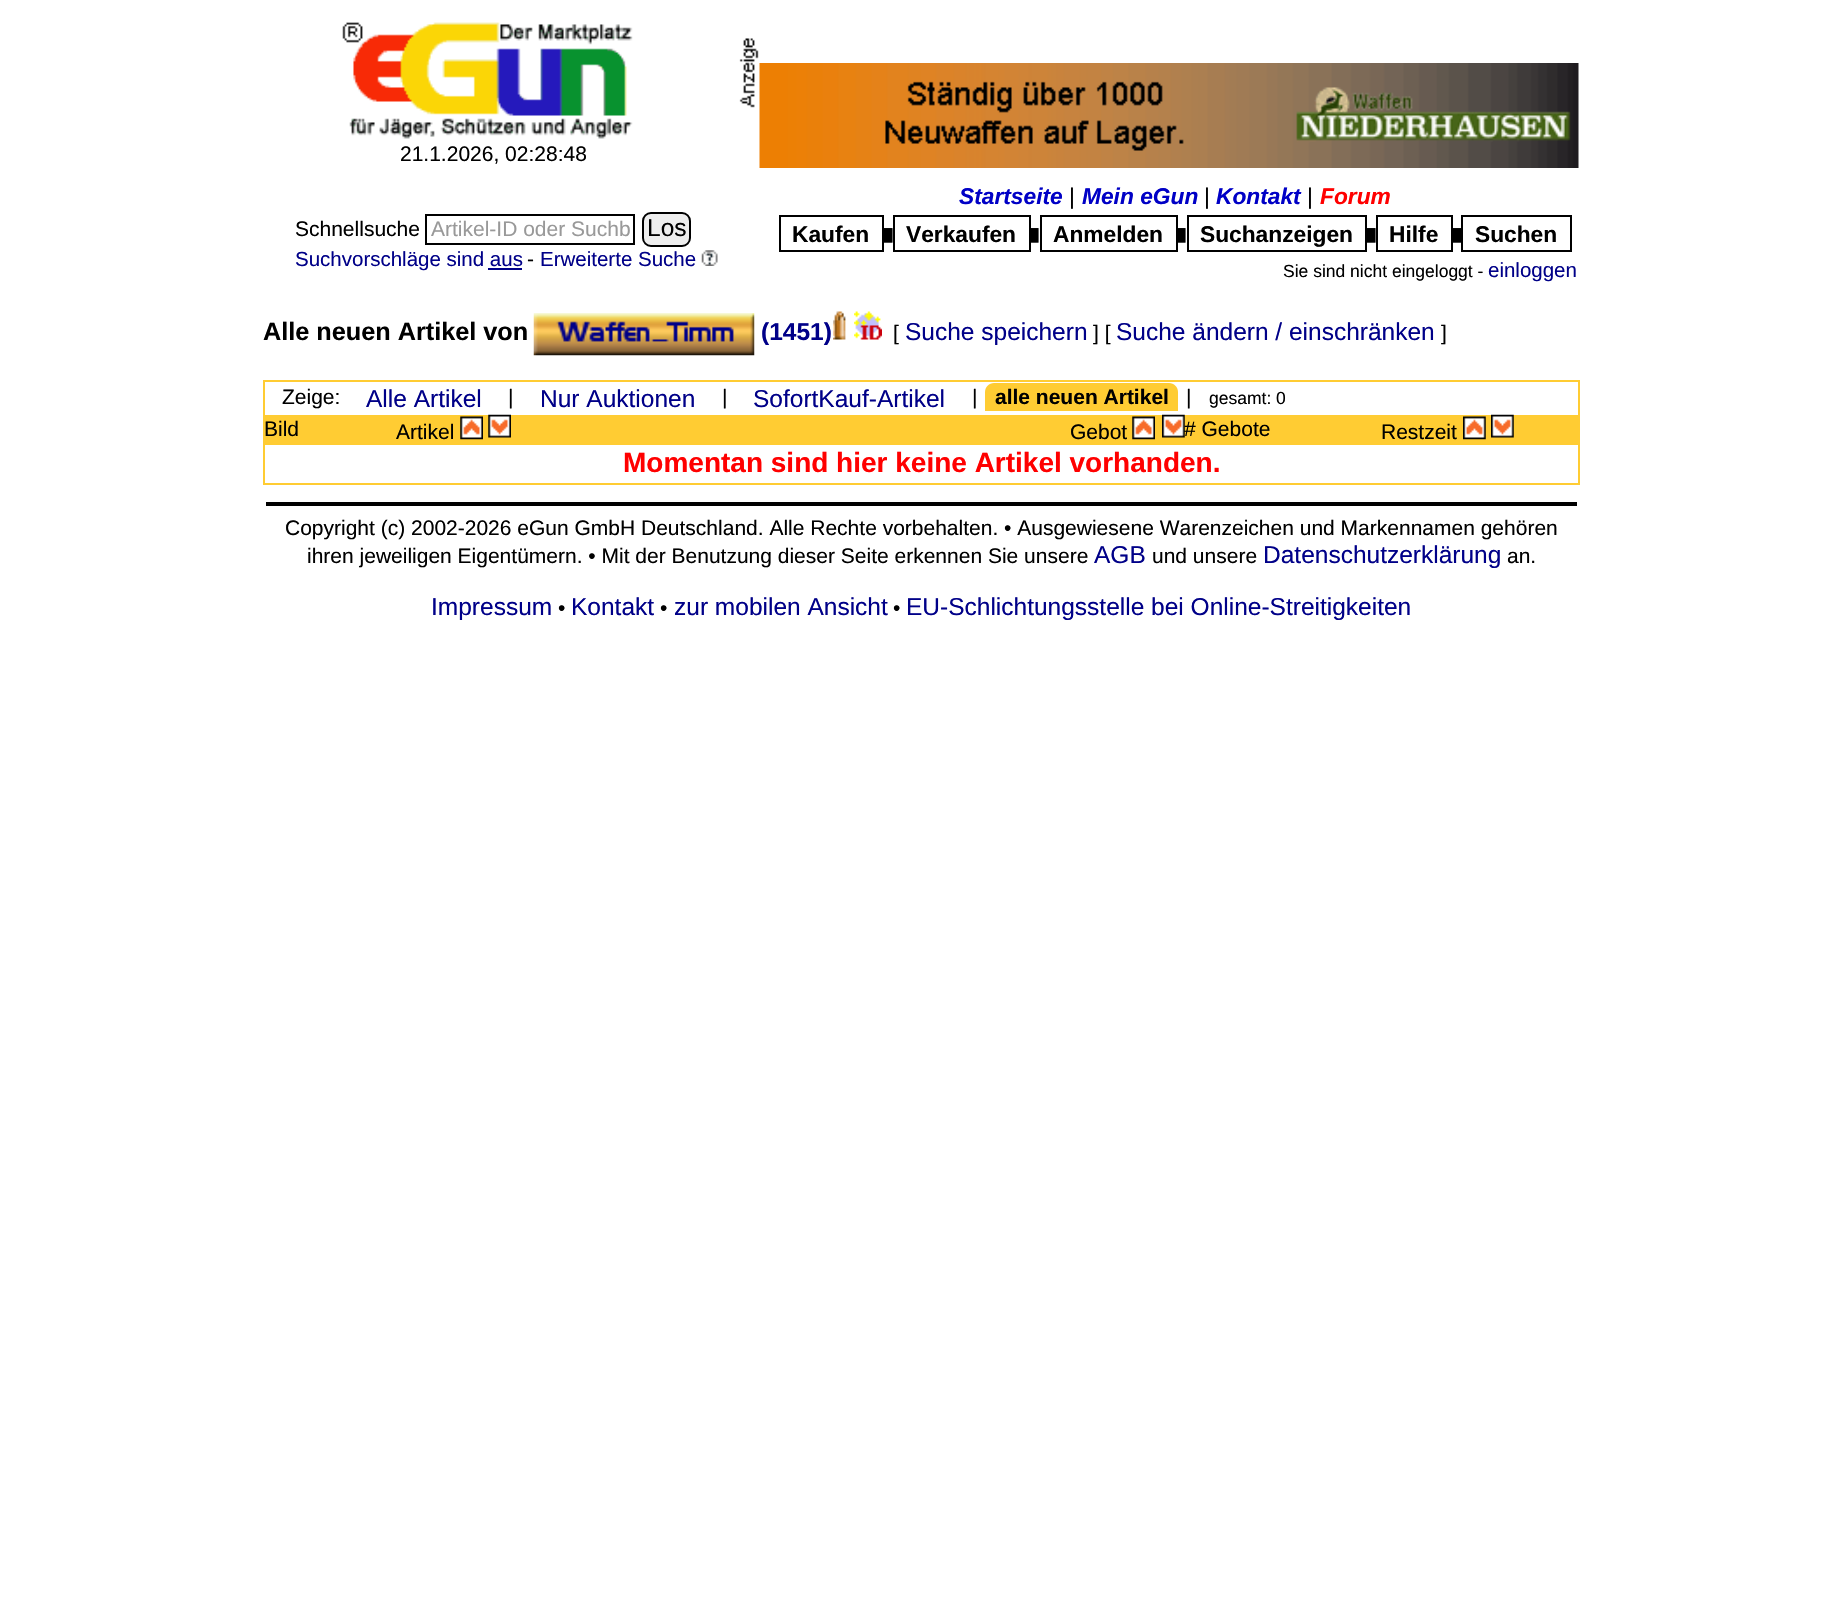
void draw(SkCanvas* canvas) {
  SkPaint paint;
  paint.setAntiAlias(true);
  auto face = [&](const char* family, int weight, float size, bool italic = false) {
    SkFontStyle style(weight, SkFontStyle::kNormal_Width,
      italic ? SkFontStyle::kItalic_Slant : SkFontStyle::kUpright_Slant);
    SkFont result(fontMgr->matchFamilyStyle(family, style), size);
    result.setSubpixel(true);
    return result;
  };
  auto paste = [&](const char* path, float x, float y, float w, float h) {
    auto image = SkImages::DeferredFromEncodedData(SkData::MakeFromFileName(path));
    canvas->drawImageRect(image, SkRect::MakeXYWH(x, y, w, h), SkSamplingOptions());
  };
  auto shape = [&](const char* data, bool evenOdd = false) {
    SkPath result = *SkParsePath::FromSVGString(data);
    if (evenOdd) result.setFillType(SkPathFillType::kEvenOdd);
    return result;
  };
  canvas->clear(0xffffffff);
  paste("img/1.png", 342, 22, 291, 117);
  paste("img/2.png", 739, 38, 20, 70);
  paste("img/3.png", 759, 63, 820, 105);
  paint.setStroke(true);
  paint.setStrokeWidth(2);
  paint.setColor(0xff000000);
  canvas->drawRect(SkRect::MakeXYWH(426, 215, 208, 29), paint);
  paint.setStroke(false);
  paint.setColor(0xffeeeeee);
  canvas->drawRoundRect(SkRect::MakeXYWH(643, 213, 47, 33), 8, 8, paint);
  paint.setStroke(true);
  paint.setColor(0xff000000);
  canvas->drawRoundRect(SkRect::MakeXYWH(643, 213, 47, 33), 8, 8, paint);
  paint.setStroke(false);
  paint.setColor(0xff000088);
  canvas->drawRect(SkRect::MakeXYWH(488, 268, 34, 2), paint);
  paste("img/4.png", 701, 250, 17, 16);
  paint.setStroke(true);
  paint.setColor(0xff000000);
  canvas->drawRect(SkRect::MakeXYWH(780, 216, 103, 35), paint);
  canvas->drawRect(SkRect::MakeXYWH(894, 216, 136, 35), paint);
  canvas->drawRect(SkRect::MakeXYWH(1041, 216, 136, 35), paint);
  canvas->drawRect(SkRect::MakeXYWH(1188, 216, 178, 35), paint);
  canvas->drawRect(SkRect::MakeXYWH(1377, 216, 75, 35), paint);
  canvas->drawRect(SkRect::MakeXYWH(1462, 216, 109, 35), paint);
  paste("img/5.png", 533, 313, 222, 43);
  paste("img/6.png", 833, 311, 13, 29);
  paste("img/7.png", 854, 311, 28, 29);
  paint.setColor(0xffffcc33);
  canvas->drawRect(SkRect::MakeXYWH(264, 381, 1315, 103), paint);
  paint.setStroke(false);
  canvas->drawPath(shape("M994 383H1169C1174 383 1178 387 1178 392V411H985V392C985 387 989 383 994 383Z"), paint);
  canvas->drawRect(SkRect::MakeXYWH(265, 415, 1313, 30), paint);
  paste("img/8.png", 460, 416, 23, 24);
  paste("img/9.png", 488, 414, 23, 24);
  paste("img/8.png", 1132, 416, 23, 24);
  paste("img/11.png", 1463, 416, 23, 24);
  paste("img/12.png", 1491, 414, 23, 24);
  paint.setColor(0xff000000);
  canvas->drawRect(SkRect::MakeXYWH(266, 502, 1311, 4), paint);
  auto f0 = face("Liberation Sans", 400, 21);
  canvas->drawString("21.1.2026, 02:28:48", 400, 161, f0, paint);
  canvas->drawString("Schnellsuche", 295, 236, f0, paint);
  paint.setColor(0xff999999);
  canvas->drawString("Artikel-ID oder Suchb", 431, 236, f0, paint);
  auto f1 = face("Liberation Sans", 400, 24.5f);
  paint.setColor(0xff000000);
  canvas->drawString("Los", 647, 236, f1, paint);
  auto f2 = face("Liberation Sans", 400, 20.5f);
  paint.setColor(0xff000088);
  canvas->drawString("Suchvorschläge sind aus", 295, 266, f2, paint);
  paint.setColor(0xff000000);
  canvas->drawString("-", 527, 266, f0, paint);
  paint.setColor(0xff000088);
  canvas->drawString("Erweiterte Suche", 540, 266, f2, paint);
  auto f3 = face("Liberation Sans", 700, 22.75f, true);
  paint.setColor(0xff0000c6);
  canvas->drawString("Startseite", 959, 204, f3, paint);
  auto f4 = face("Liberation Sans", 400, 22.75f);
  paint.setColor(0xff000000);
  canvas->drawString("|", 1069, 204, f4, paint);
  paint.setColor(0xff0000c6);
  canvas->drawString("Mein eGun", 1082, 204, f3, paint);
  paint.setColor(0xff000000);
  canvas->drawString("|", 1204, 204, f4, paint);
  paint.setColor(0xff0000c6);
  canvas->drawString("Kontakt", 1216, 204, f3, paint);
  paint.setColor(0xff000000);
  canvas->drawString("|", 1307, 204, f4, paint);
  paint.setColor(0xffff0000);
  canvas->drawString("Forum", 1320, 204, f3, paint);
  auto f5 = face("Liberation Sans", 700, 22.75f);
  paint.setColor(0xff000000);
  canvas->drawString("Kaufen", 792, 242, f5, paint);
  auto f6 = face("Liberation Sans", 400, 12);
  canvas->drawString("█", 884, 239, f6, paint);
  canvas->drawString("Verkaufen", 906, 242, f5, paint);
  canvas->drawString("█", 1030, 239, f6, paint);
  canvas->drawString("Anmelden", 1053, 242, f5, paint);
  canvas->drawString("█", 1177, 239, f6, paint);
  canvas->drawString("Suchanzeigen", 1200, 242, f5, paint);
  canvas->drawString("█", 1367, 239, f6, paint);
  canvas->drawString("Hilfe", 1389, 242, f5, paint);
  canvas->drawString("█", 1453, 239, f6, paint);
  canvas->drawString("Suchen", 1475, 242, f5, paint);
  auto f7 = face("Liberation Sans", 400, 17.5f);
  canvas->drawString("Sie sind nicht eingeloggt -", 1283, 277, f7, paint);
  paint.setColor(0xff000088);
  canvas->drawString("einloggen", 1488, 277, f2, paint);
  auto f8 = face("Liberation Sans", 700, 25.25f);
  paint.setColor(0xff000000);
  canvas->drawString("Alle neuen Artikel von", 263, 340, f8, paint);
  auto f9 = face("Liberation Sans", 700, 24.5f);
  paint.setColor(0xff000088);
  canvas->drawString("(1451)", 761, 340, f9, paint);
  paint.setColor(0xff000000);
  canvas->drawString("[", 893, 340, f0, paint);
  paint.setColor(0xff000088);
  canvas->drawString("Suche speichern", 905, 340, f1, paint);
  paint.setColor(0xff000000);
  canvas->drawString("] [", 1093, 340, f0, paint);
  paint.setColor(0xff000088);
  canvas->drawString("Suche ändern / einschränken", 1116, 340, f1, paint);
  paint.setColor(0xff000000);
  canvas->drawString("]", 1441, 340, f0, paint);
  canvas->drawString("Zeige:", 282, 404, f0, paint);
  paint.setColor(0xff000088);
  canvas->drawString("Alle Artikel", 366, 407, f1, paint);
  paint.setColor(0xff000000);
  canvas->drawString("|", 508, 404, f0, paint);
  paint.setColor(0xff000088);
  canvas->drawString("Nur Auktionen", 540, 407, f1, paint);
  paint.setColor(0xff000000);
  canvas->drawString("|", 722, 404, f0, paint);
  paint.setColor(0xff000088);
  canvas->drawString("SofortKauf-Artikel", 753, 407, f1, paint);
  paint.setColor(0xff000000);
  canvas->drawString("|", 972, 404, f0, paint);
  auto f10 = face("Liberation Sans", 700, 21);
  canvas->drawString("alle neuen Artikel", 995, 404, f10, paint);
  canvas->drawString("|", 1186, 404, f0, paint);
  canvas->drawString("gesamt: 0", 1209, 404, f7, paint);
  {
    const struct { const char* s; float x, y; } items[] = {
      {"Bild", 264, 436},
      {"Artikel", 396, 439},
      {"Gebot", 1070, 439},
      {"# Gebote", 1184, 436},
    };
    for (auto [s, x, y] : items) {
      canvas->drawString(s, x, y, f0, paint);
    }
  }
  paste("img/10.png", 1162, 414, 23, 24);
  canvas->drawString("Restzeit", 1381, 439, f0, paint);
  auto f11 = face("Liberation Sans", 700, 28);
  paint.setColor(0xffff0000);
  canvas->drawString("Momentan sind hier keine Artikel vorhanden.", 623, 472, f11, paint);
  paint.setColor(0xff000000);
  canvas->drawString("Copyright (c) 2002-2026 eGun GmbH Deutschland. Alle Rechte vorbehalten. • Ausgewiesene Warenzeichen und Markennamen gehören", 285, 535, f0, paint);
  canvas->drawString("ihren jeweiligen Eigentümern. • Mit der Benutzung dieser Seite erkennen Sie unsere", 307, 563, f0, paint);
  paint.setColor(0xff000088);
  canvas->drawString("AGB", 1094, 563, f1, paint);
  paint.setColor(0xff000000);
  canvas->drawString("und unsere", 1152, 563, f0, paint);
  paint.setColor(0xff000088);
  canvas->drawString("Datenschutzerklärung", 1263, 563, f1, paint);
  paint.setColor(0xff000000);
  canvas->drawString("an.", 1507, 563, f0, paint);
  paint.setColor(0xff000088);
  canvas->drawString("Impressum", 431, 615, f1, paint);
  paint.setColor(0xff000000);
  canvas->drawString("•", 558, 615, f0, paint);
  paint.setColor(0xff000088);
  canvas->drawString("Kontakt", 571, 615, f1, paint);
  paint.setColor(0xff000000);
  canvas->drawString("•", 660, 615, f0, paint);
  paint.setColor(0xff000088);
  canvas->drawString("zur mobilen Ansicht", 674, 615, f1, paint);
  paint.setColor(0xff000000);
  canvas->drawString("•", 893, 615, f0, paint);
  paint.setColor(0xff000088);
  canvas->drawString("EU-Schlichtungsstelle bei Online-Streitigkeiten", 906, 615, f1, paint);
}
